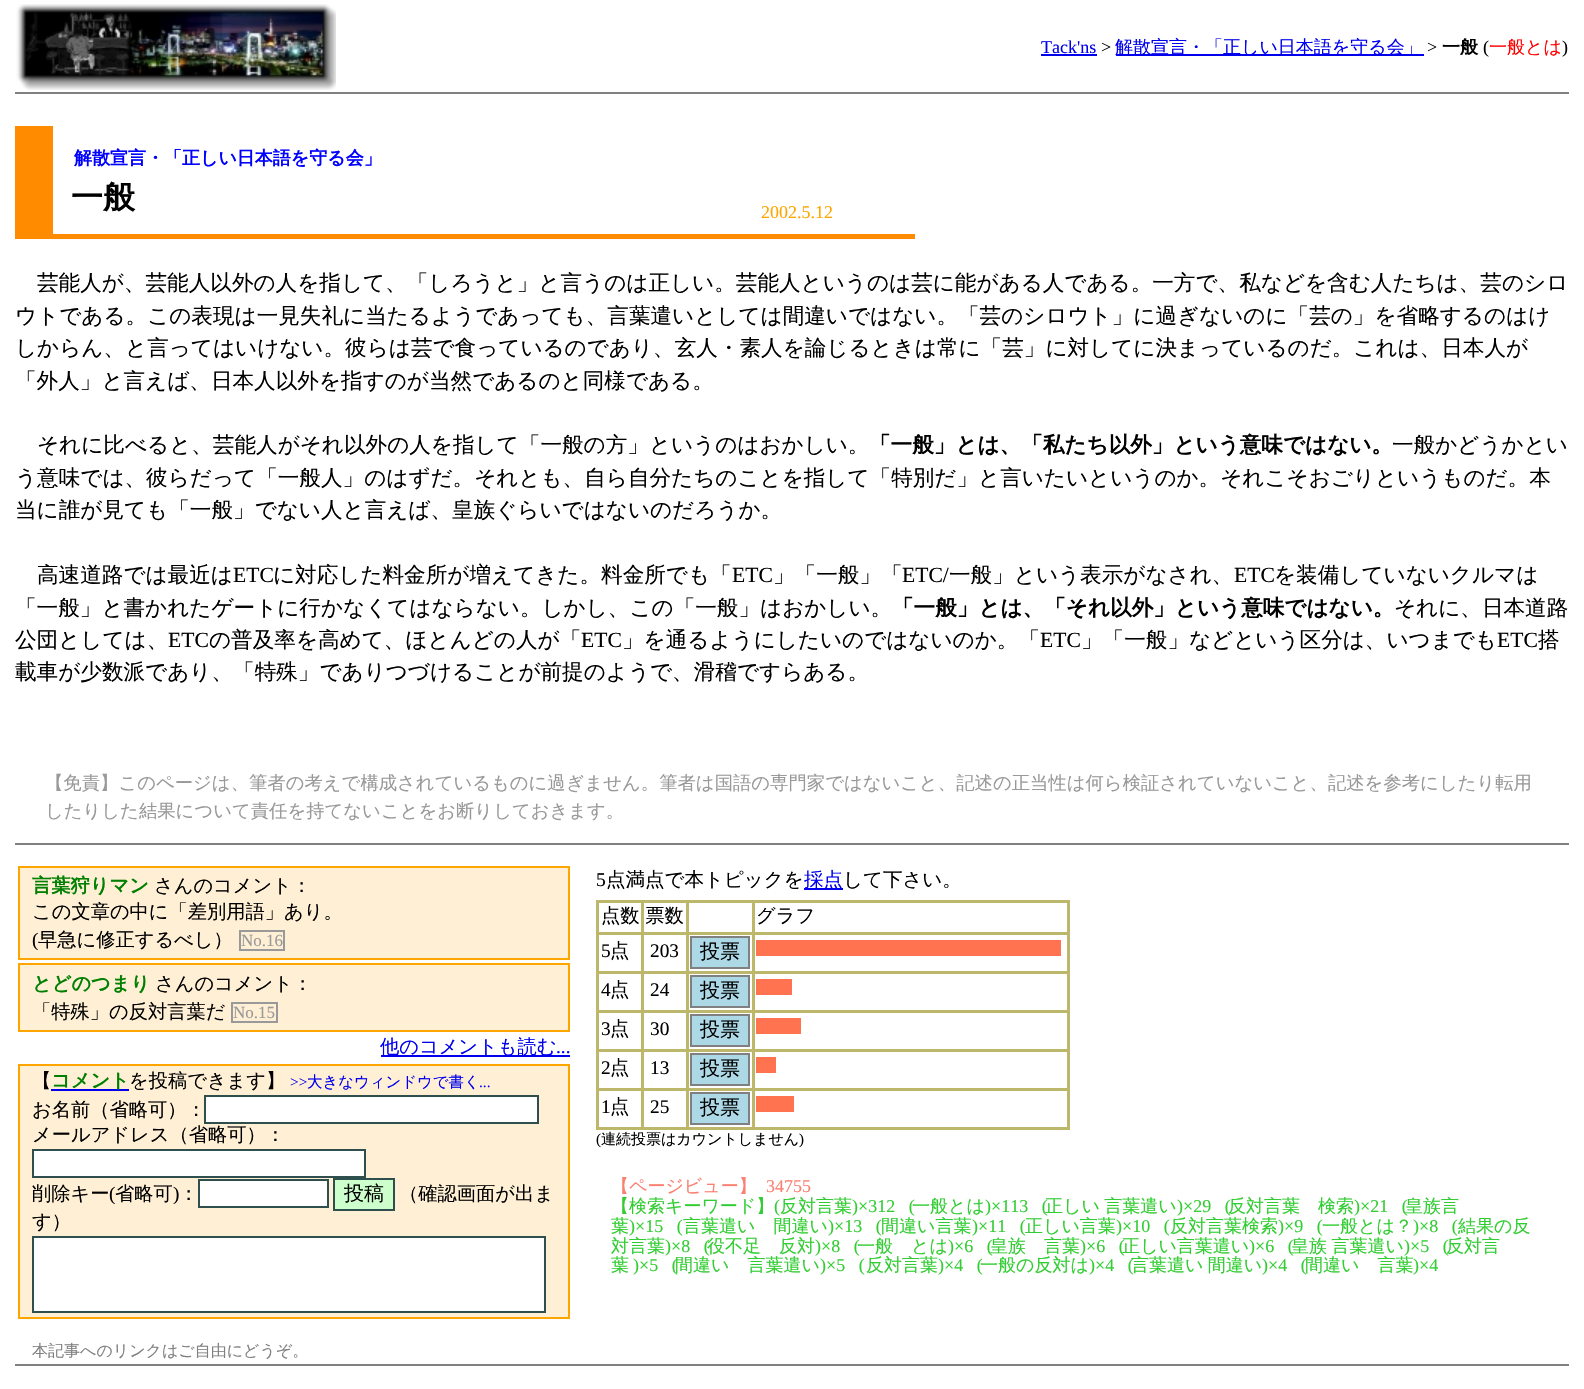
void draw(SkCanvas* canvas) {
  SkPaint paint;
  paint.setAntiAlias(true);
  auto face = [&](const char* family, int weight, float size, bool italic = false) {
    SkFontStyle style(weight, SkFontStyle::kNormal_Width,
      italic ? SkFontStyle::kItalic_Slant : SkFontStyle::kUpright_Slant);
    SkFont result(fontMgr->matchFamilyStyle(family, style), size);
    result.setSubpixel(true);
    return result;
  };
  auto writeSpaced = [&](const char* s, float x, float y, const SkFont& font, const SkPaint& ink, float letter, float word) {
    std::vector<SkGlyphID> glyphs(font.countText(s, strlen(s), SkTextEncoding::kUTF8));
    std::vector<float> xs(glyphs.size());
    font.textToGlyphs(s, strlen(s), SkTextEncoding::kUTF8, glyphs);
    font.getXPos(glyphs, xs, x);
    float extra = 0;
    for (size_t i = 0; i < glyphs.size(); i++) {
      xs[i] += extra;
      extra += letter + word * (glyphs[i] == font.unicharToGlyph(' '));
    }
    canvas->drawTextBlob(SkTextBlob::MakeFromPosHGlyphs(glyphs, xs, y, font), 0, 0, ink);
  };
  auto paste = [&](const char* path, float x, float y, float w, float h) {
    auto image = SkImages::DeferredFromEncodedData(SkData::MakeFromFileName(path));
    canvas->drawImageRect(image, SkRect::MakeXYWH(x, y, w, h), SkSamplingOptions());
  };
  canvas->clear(0xffffffff);
  paint.setColor(0xff808080);
  canvas->drawRect(SkRect::MakeXYWH(15, 92, 1554, 2), paint);
  paste("img/1.png", 16, 4, 320, 86);
  {
    const struct { float x, y, w, h; SkColor color; } items[] = {
      {1041, 54, 56, 2, 0xff0000ee},
      {1116, 54, 308, 2, 0xff0000ee},
      {53, 234, 862, 5, 0xffff8c00},
      {15, 126, 38, 113, 0xffff8c00},
      {15, 843, 1554, 2, 0xff808080},
      {15, 1364, 1554, 2, 0xff808080},
    };
    for (auto [x, y, w, h, color] : items) {
      paint.setColor(color);
      canvas->drawRect(SkRect::MakeXYWH(x, y, w, h), paint);
    }
  }
  paint.setColor(0xffffefd5);
  canvas->drawRect(SkRect::MakeXYWH(19, 867, 550, 92), paint);
  paint.setStroke(true);
  paint.setStrokeWidth(2);
  paint.setColor(0xffffa500);
  canvas->drawRect(SkRect::MakeXYWH(19, 867, 550, 92), paint);
  paint.setColor(0xff999999);
  canvas->drawRect(SkRect::MakeXYWH(240, 931, 44, 19), paint);
  paint.setStroke(false);
  paint.setColor(0xffffefd5);
  canvas->drawRect(SkRect::MakeXYWH(19, 964, 550, 67), paint);
  paint.setStroke(true);
  paint.setColor(0xffffa500);
  canvas->drawRect(SkRect::MakeXYWH(19, 964, 550, 67), paint);
  paint.setColor(0xff999999);
  canvas->drawRect(SkRect::MakeXYWH(232, 1003, 45, 19), paint);
  paint.setStroke(false);
  paint.setColor(0xff0000ee);
  canvas->drawRect(SkRect::MakeXYWH(381, 1055, 189, 2), paint);
  paint.setColor(0xffffefd5);
  canvas->drawRect(SkRect::MakeXYWH(19, 1065, 550, 253), paint);
  paint.setStroke(true);
  paint.setColor(0xffffa500);
  canvas->drawRect(SkRect::MakeXYWH(19, 1065, 550, 253), paint);
  paint.setStroke(false);
  paint.setColor(0xff0000ee);
  canvas->drawRect(SkRect::MakeXYWH(51, 1089, 78, 2), paint);
  paint.setColor(0xffffffff);
  canvas->drawRect(SkRect::MakeXYWH(205, 1096, 333, 27), paint);
  paint.setStroke(true);
  paint.setColor(0xff2f4f4f);
  canvas->drawRect(SkRect::MakeXYWH(205, 1096, 333, 27), paint);
  paint.setStroke(false);
  paint.setColor(0xffffffff);
  canvas->drawRect(SkRect::MakeXYWH(33, 1150, 332, 27), paint);
  paint.setStroke(true);
  paint.setColor(0xff2f4f4f);
  canvas->drawRect(SkRect::MakeXYWH(33, 1150, 332, 27), paint);
  paint.setStroke(false);
  paint.setColor(0xffffffff);
  canvas->drawRect(SkRect::MakeXYWH(199, 1180, 129, 27), paint);
  paint.setStroke(true);
  paint.setColor(0xff2f4f4f);
  canvas->drawRect(SkRect::MakeXYWH(199, 1180, 129, 27), paint);
  paint.setStroke(false);
  paint.setColor(0xffccffcc);
  canvas->drawRect(SkRect::MakeXYWH(334, 1179, 60, 31), paint);
  paint.setStroke(true);
  paint.setColor(0xff2f4f4f);
  canvas->drawRect(SkRect::MakeXYWH(334, 1179, 60, 31), paint);
  paint.setStroke(false);
  paint.setColor(0xffffffff);
  canvas->drawRect(SkRect::MakeXYWH(33, 1237, 512, 75), paint);
  paint.setStroke(true);
  paint.setColor(0xff2f4f4f);
  canvas->drawRect(SkRect::MakeXYWH(33, 1237, 512, 75), paint);
  paint.setStroke(false);
  {
    const struct { float x, y, w, h; SkColor color; } items[] = {
      {804, 888, 39, 2, 0xff0000ee},
      {596, 900, 474, 230, 0xffbdb76b},
      {644, 903, 42, 29, 0xffffffff},
      {689, 903, 63, 29, 0xffffffff},
      {599, 903, 42, 29, 0xffffffff},
      {755, 903, 312, 29, 0xffffffff},
      {599, 935, 42, 36, 0xffffffff},
      {644, 935, 42, 36, 0xffffffff},
      {689, 935, 63, 36, 0xffffffff},
    };
    for (auto [x, y, w, h, color] : items) {
      paint.setColor(color);
      canvas->drawRect(SkRect::MakeXYWH(x, y, w, h), paint);
    }
  }
  paint.setColor(0xffadd8e6);
  canvas->drawRect(SkRect::MakeXYWH(691, 937, 58, 31), paint);
  paint.setStroke(true);
  paint.setColor(0xff808080);
  canvas->drawRect(SkRect::MakeXYWH(691, 937, 58, 31), paint);
  paint.setStroke(false);
  {
    const struct { float x, y, w, h; SkColor color; } items[] = {
      {755, 935, 312, 36, 0xffffffff},
      {756, 940, 305, 16, 0xffff7350},
      {599, 974, 42, 36, 0xffffffff},
      {644, 974, 42, 36, 0xffffffff},
      {689, 974, 63, 36, 0xffffffff},
    };
    for (auto [x, y, w, h, color] : items) {
      paint.setColor(color);
      canvas->drawRect(SkRect::MakeXYWH(x, y, w, h), paint);
    }
  }
  paint.setColor(0xffadd8e6);
  canvas->drawRect(SkRect::MakeXYWH(691, 976, 58, 31), paint);
  paint.setStroke(true);
  paint.setColor(0xff808080);
  canvas->drawRect(SkRect::MakeXYWH(691, 976, 58, 31), paint);
  paint.setStroke(false);
  {
    const struct { float x, y, w, h; SkColor color; } items[] = {
      {755, 974, 312, 36, 0xffffffff},
      {756, 979, 36, 16, 0xffff7350},
      {599, 1013, 42, 36, 0xffffffff},
      {644, 1013, 42, 36, 0xffffffff},
      {689, 1013, 63, 36, 0xffffffff},
    };
    for (auto [x, y, w, h, color] : items) {
      paint.setColor(color);
      canvas->drawRect(SkRect::MakeXYWH(x, y, w, h), paint);
    }
  }
  paint.setColor(0xffadd8e6);
  canvas->drawRect(SkRect::MakeXYWH(691, 1015, 58, 31), paint);
  paint.setStroke(true);
  paint.setColor(0xff808080);
  canvas->drawRect(SkRect::MakeXYWH(691, 1015, 58, 31), paint);
  paint.setStroke(false);
  {
    const struct { float x, y, w, h; SkColor color; } items[] = {
      {755, 1013, 312, 36, 0xffffffff},
      {756, 1018, 45, 16, 0xffff7350},
      {599, 1052, 42, 36, 0xffffffff},
      {644, 1052, 42, 36, 0xffffffff},
      {689, 1052, 63, 36, 0xffffffff},
    };
    for (auto [x, y, w, h, color] : items) {
      paint.setColor(color);
      canvas->drawRect(SkRect::MakeXYWH(x, y, w, h), paint);
    }
  }
  paint.setColor(0xffadd8e6);
  canvas->drawRect(SkRect::MakeXYWH(691, 1054, 58, 31), paint);
  paint.setStroke(true);
  paint.setColor(0xff808080);
  canvas->drawRect(SkRect::MakeXYWH(691, 1054, 58, 31), paint);
  paint.setStroke(false);
  {
    const struct { float x, y, w, h; SkColor color; } items[] = {
      {755, 1052, 312, 36, 0xffffffff},
      {756, 1057, 20, 16, 0xffff7350},
      {599, 1091, 42, 36, 0xffffffff},
      {644, 1091, 42, 36, 0xffffffff},
      {689, 1091, 63, 36, 0xffffffff},
    };
    for (auto [x, y, w, h, color] : items) {
      paint.setColor(color);
      canvas->drawRect(SkRect::MakeXYWH(x, y, w, h), paint);
    }
  }
  paint.setColor(0xffadd8e6);
  canvas->drawRect(SkRect::MakeXYWH(691, 1093, 58, 31), paint);
  paint.setStroke(true);
  paint.setColor(0xff808080);
  canvas->drawRect(SkRect::MakeXYWH(691, 1093, 58, 31), paint);
  paint.setStroke(false);
  paint.setColor(0xffffffff);
  canvas->drawRect(SkRect::MakeXYWH(755, 1091, 312, 36), paint);
  paint.setColor(0xffff7350);
  canvas->drawRect(SkRect::MakeXYWH(756, 1096, 38, 16), paint);
  auto f0 = face("Liberation Serif", 400, 18);
  paint.setColor(0xff0000ee);
  canvas->drawString("Tack'ns", 1041, 53, f0, paint);
  paint.setColor(0xff000000);
  canvas->drawString(">", 1101, 53, f0, paint);
  auto f1 = face("WenQuanYi Zen Hei", 500, 18);
  paint.setColor(0xff0000ee);
  canvas->drawString("解散宣言・「正しい日本語を守る会」", 1115, 53, f1, paint);
  paint.setColor(0xff000000);
  canvas->drawString(">", 1427, 53, f0, paint);
  auto f2 = face("WenQuanYi Zen Hei", 700, 18);
  canvas->drawString("一般", 1442, 53, f2, paint);
  canvas->drawString("(", 1483, 53, f0, paint);
  paint.setColor(0xffff0000);
  canvas->drawString("一般とは", 1489, 53, f1, paint);
  paint.setColor(0xff000000);
  canvas->drawString(")", 1562, 53, f0, paint);
  paint.setColor(0xff0000ff);
  canvas->drawString("解散宣言・「正しい日本語を守る会」", 74, 164, f2, paint);
  auto f3 = face("WenQuanYi Zen Hei", 700, 32);
  paint.setColor(0xff000000);
  canvas->drawString("一般", 71, 208, f3, paint);
  paint.setColor(0xffffa500);
  canvas->drawString("2002.5.12", 761, 218, f0, paint);
  auto f4 = face("WenQuanYi Zen Hei", 500, 21.6f);
  paint.setColor(0xff000000);
  {
    const struct { const char* s; float x, y; } items[] = {
      {"芸能人が、芸能人以外の人を指して、「しろうと」と言うのは正しい。芸能人というのは芸に能がある人である。一方で、私などを含む人たちは、芸のシロ", 37, 290},
      {"ウトである。この表現は一見失礼に当たるようであっても、言葉遣いとしては間違いではない。「芸のシロウト」に過ぎないのに「芸の」を省略するのはけ", 15, 323},
      {"しからん、と言ってはいけない。彼らは芸で食っているのであり、玄人・素人を論じるときは常に「芸」に対してに決まっているのだ。これは、日本人が", 15, 355},
      {"「外人」と言えば、日本人以外を指すのが当然であるのと同様である。", 15, 388},
      {"それに比べると、芸能人がそれ以外の人を指して「一般の方」というのはおかしい。", 37, 452},
    };
    for (auto [s, x, y] : items) {
      canvas->drawString(s, x, y, f4, paint);
    }
  }
  auto f5 = face("WenQuanYi Zen Hei", 700, 21.6f);
  canvas->drawString("「一般」とは、「私たち以外」という意味ではない。", 869, 452, f5, paint);
  {
    const struct { const char* s; float x, y; } items[] = {
      {"一般かどうかとい", 1392, 452},
      {"う意味では、彼らだって「一般人」のはずだ。それとも、自ら自分たちのことを指して「特別だ」と言いたいというのか。それこそおごりというものだ。本", 15, 485},
      {"当に誰が見ても「一般」でない人と言えば、皇族ぐらいではないのだろうか。", 15, 517},
      {"高速道路では最近は", 37, 582},
    };
    for (auto [s, x, y] : items) {
      canvas->drawString(s, x, y, f4, paint);
    }
  }
  auto f6 = face("Liberation Serif", 400, 21.6f);
  canvas->drawString("ETC", 233, 582, f6, paint);
  canvas->drawString("に対応した料金所が増えてきた。料金所でも「", 273, 582, f4, paint);
  canvas->drawString("ETC", 732, 582, f6, paint);
  canvas->drawString("」「一般」「", 773, 582, f4, paint);
  canvas->drawString("ETC/", 902, 582, f6, paint);
  canvas->drawString("一般」という表示がなされ、", 949, 582, f4, paint);
  canvas->drawString("ETC", 1234, 582, f6, paint);
  canvas->drawString("を装備していないクルマは", 1274, 582, f4, paint);
  canvas->drawString("「一般」と書かれたゲートに行かなくてはならない。しかし、この「一般」はおかしい。", 15, 615, f4, paint);
  canvas->drawString("「一般」とは、「それ以外」という意味ではない。", 892, 615, f5, paint);
  canvas->drawString("それに、日本道路", 1394, 615, f4, paint);
  canvas->drawString("公団としては、", 15, 647, f4, paint);
  canvas->drawString("ETC", 168, 647, f6, paint);
  canvas->drawString("の普及率を高めて、ほとんどの人が「", 209, 647, f4, paint);
  canvas->drawString("ETC", 581, 647, f6, paint);
  canvas->drawString("」を通るようにしたいのではないのか。「", 622, 647, f4, paint);
  canvas->drawString("ETC", 1040, 647, f6, paint);
  canvas->drawString("」「一般」などという区分は、いつまでも", 1081, 647, f4, paint);
  canvas->drawString("ETC", 1497, 647, f6, paint);
  canvas->drawString("搭", 1538, 647, f4, paint);
  canvas->drawString("載車が少数派であり、「特殊」でありつづけることが前提のようで、滑稽ですらある。", 15, 679, f4, paint);
  auto f7 = face("WenQuanYi Zen Hei", 500, 18.35f);
  paint.setColor(0xff999999);
  canvas->drawString("【免責】このページは、筆者の考えで構成されているものに過ぎません。筆者は国語の専門家ではないこと、記述の正当性は何ら検証されていないこと、記述を参考にしたり転用", 45, 789, f7, paint);
  canvas->drawString("したりした結果について責任を持てないことをお断りしておきます。", 45, 817, f7, paint);
  auto f8 = face("WenQuanYi Zen Hei", 700, 19.25f);
  paint.setColor(0xff008000);
  canvas->drawString("言葉狩りマン", 32, 892, f8, paint);
  auto f9 = face("WenQuanYi Zen Hei", 500, 19.25f);
  paint.setColor(0xff000000);
  canvas->drawString("さんのコメント：", 154, 892, f9, paint);
  canvas->drawString("この文章の中に「差別用語」あり。", 32, 918, f9, paint);
  auto f10 = face("Liberation Serif", 400, 19.25f);
  canvas->drawString("(", 32, 946, f10, paint);
  canvas->drawString("早急に修正するべし）", 38, 946, f9, paint);
  auto f11 = face("Liberation Serif", 400, 17);
  paint.setColor(0xff999999);
  canvas->drawString("No.16", 241, 946, f11, paint);
  paint.setColor(0xff008000);
  canvas->drawString("とどのつまり", 32, 990, f8, paint);
  paint.setColor(0xff000000);
  canvas->drawString("さんのコメント：", 155, 990, f9, paint);
  canvas->drawString("「特殊」の反対言葉だ", 32, 1018, f9, paint);
  paint.setColor(0xff999999);
  canvas->drawString("No.15", 233, 1018, f11, paint);
  paint.setColor(0xff0000ee);
  canvas->drawString("他のコメントも読む", 380, 1053, f9, paint);
  canvas->drawString("...", 556, 1053, f10, paint);
  paint.setColor(0xff000000);
  canvas->drawString("【", 32, 1087, f9, paint);
  paint.setColor(0xff008000);
  canvas->drawString("コメント", 51, 1087, f8, paint);
  paint.setColor(0xff000000);
  canvas->drawString("を投稿できます】", 129, 1087, f9, paint);
  auto f12 = face("Liberation Serif", 400, 15.4f);
  paint.setColor(0xff0000ee);
  canvas->drawString(">>", 290, 1087, f12, paint);
  auto f13 = face("WenQuanYi Zen Hei", 500, 15.4f);
  canvas->drawString("大きなウィンドウで書く", 307, 1087, f13, paint);
  canvas->drawString("...", 479, 1087, f12, paint);
  paint.setColor(0xff000000);
  {
    const struct { const char* s; float x, y; } items[] = {
      {"お名前（省略可）：", 32, 1116},
      {"メールアドレス（省略可）：", 32, 1141},
      {"削除キー", 32, 1200},
    };
    for (auto [s, x, y] : items) {
      canvas->drawString(s, x, y, f9, paint);
    }
  }
  canvas->drawString("(", 109, 1200, f10, paint);
  canvas->drawString("省略可", 115, 1200, f9, paint);
  canvas->drawString(")", 173, 1200, f10, paint);
  canvas->drawString("：", 179, 1200, f9, paint);
  auto f14 = face("WenQuanYi Zen Hei", 500, 20);
  canvas->drawString("投稿", 344, 1200, f14, paint);
  canvas->drawString("（確認画面が出ま", 399, 1200, f9, paint);
  canvas->drawString("す）", 32, 1228, f9, paint);
  auto f15 = face("Liberation Serif", 400, 19.5f);
  canvas->drawString("5", 596, 886, f15, paint);
  auto f16 = face("WenQuanYi Zen Hei", 500, 19.5f);
  canvas->drawString("点満点で本トピックを", 606, 886, f16, paint);
  paint.setColor(0xff0000ee);
  canvas->drawString("採点", 804, 886, f16, paint);
  paint.setColor(0xff000000);
  canvas->drawString("して下さい。", 843, 886, f16, paint);
  canvas->drawString("点数 票数", 601, 922, f9, paint);
  canvas->drawString("グラフ", 756, 922, f9, paint);
  canvas->drawString("5", 601, 957, f10, paint);
  canvas->drawString("点", 610, 957, f9, paint);
  canvas->drawString("203", 650, 957, f10, paint);
  canvas->drawString("投票", 700, 958, f14, paint);
  canvas->drawString("4", 601, 996, f10, paint);
  canvas->drawString("点", 610, 996, f9, paint);
  canvas->drawString("24", 650, 996, f10, paint);
  canvas->drawString("投票", 700, 997, f14, paint);
  canvas->drawString("3", 601, 1035, f10, paint);
  canvas->drawString("点", 610, 1035, f9, paint);
  canvas->drawString("30", 650, 1035, f10, paint);
  canvas->drawString("投票", 700, 1036, f14, paint);
  canvas->drawString("2", 601, 1074, f10, paint);
  canvas->drawString("点", 610, 1074, f9, paint);
  canvas->drawString("13", 650, 1074, f10, paint);
  canvas->drawString("投票", 700, 1075, f14, paint);
  canvas->drawString("1", 601, 1113, f10, paint);
  canvas->drawString("点", 610, 1113, f9, paint);
  canvas->drawString("25", 650, 1113, f10, paint);
  canvas->drawString("投票", 700, 1114, f14, paint);
  auto f17 = face("Liberation Serif", 400, 15);
  canvas->drawString("(", 596, 1144, f17, paint);
  auto f18 = face("WenQuanYi Zen Hei", 500, 15);
  canvas->drawString("連続投票はカウントしません", 601, 1144, f18, paint);
  canvas->drawString(")", 799, 1144, f17, paint);
  paint.setColor(0xfffa8072);
  canvas->drawString("【ページビュー】", 611, 1192, f1, paint);
  canvas->drawString("34755", 766, 1192, f0, paint);
  paint.setColor(0xff32cd32);
  canvas->drawString("【検索キーワード】", 611, 1212, f1, paint);
  canvas->drawString("(", 774, 1212, f0, paint);
  canvas->drawString("反対言葉", 780, 1212, f1, paint);
  canvas->drawString(")×312   (", 852, 1212, f0, paint);
  canvas->drawString("一般とは", 912, 1212, f1, paint);
  canvas->drawString(")×113   (", 985, 1212, f0, paint);
  writeSpaced("正しい 言葉遣い", 1045, 1212, f1, paint, 0, -1);
  canvas->drawString(")×29   (", 1177, 1212, f0, paint);
  canvas->drawString("反対言葉　検索", 1228, 1212, f1, paint);
  canvas->drawString(")×21   (", 1354, 1212, f0, paint);
  canvas->drawString("皇族言", 1405, 1212, f1, paint);
  canvas->drawString("葉", 611, 1232, f1, paint);
  canvas->drawString(")×15   (", 629, 1232, f0, paint);
  canvas->drawString("言葉遣い　間違い", 683, 1232, f1, paint);
  canvas->drawString(")×13   (", 828, 1232, f0, paint);
  canvas->drawString("間違い言葉", 881, 1232, f1, paint);
  canvas->drawString(")×11   (", 972, 1232, f0, paint);
  canvas->drawString("正しい言葉", 1025, 1232, f1, paint);
  canvas->drawString(")×10   (", 1116, 1232, f0, paint);
  canvas->drawString("反対言葉検索", 1170, 1232, f1, paint);
  canvas->drawString(")×9   (", 1278, 1232, f0, paint);
  canvas->drawString("一般とは？", 1322, 1232, f1, paint);
  canvas->drawString(")×8   (", 1413, 1232, f0, paint);
  canvas->drawString("結果の反", 1458, 1232, f1, paint);
  canvas->drawString("対言葉", 611, 1252, f1, paint);
  canvas->drawString(")×8   (", 665, 1252, f0, paint);
  canvas->drawString("役不足　反対", 707, 1252, f1, paint);
  canvas->drawString(")×8   (", 815, 1252, f0, paint);
  canvas->drawString("一般　とは", 857, 1252, f1, paint);
  canvas->drawString(")×6   (", 948, 1252, f0, paint);
  canvas->drawString("皇族　言葉", 990, 1252, f1, paint);
  canvas->drawString(")×6   (", 1080, 1252, f0, paint);
  canvas->drawString("正しい言葉遣い", 1122, 1252, f1, paint);
  canvas->drawString(")×6   (", 1249, 1252, f0, paint);
  writeSpaced("皇族 言葉遣い", 1291, 1252, f1, paint, 0, -1);
  canvas->drawString(")×5   (", 1404, 1252, f0, paint);
  canvas->drawString("反対言", 1446, 1252, f1, paint);
  canvas->drawString("葉", 611, 1271, f1, paint);
  canvas->drawString(")×5   (", 633, 1271, f0, paint);
  canvas->drawString("間違い　言葉遣い", 675, 1271, f1, paint);
  canvas->drawString(")×5   (", 820, 1271, f0, paint);
  canvas->drawString("反対言葉", 866, 1271, f1, paint);
  canvas->drawString(")×4   (", 938, 1271, f0, paint);
  canvas->drawString("一般の反対は", 980, 1271, f1, paint);
  canvas->drawString(")×4   (", 1089, 1271, f0, paint);
  writeSpaced("言葉遣い 間違い", 1131, 1271, f1, paint, 0, -1);
  canvas->drawString(")×4   (", 1262, 1271, f0, paint);
  canvas->drawString("間違い　言葉", 1305, 1271, f1, paint);
  canvas->drawString(")×4", 1413, 1271, f0, paint);
  auto f19 = face("WenQuanYi Zen Hei", 500, 16);
  paint.setColor(0xff808080);
  canvas->drawString("本記事へのリンクはご自由にどうぞ。", 32, 1356, f19, paint);
}
